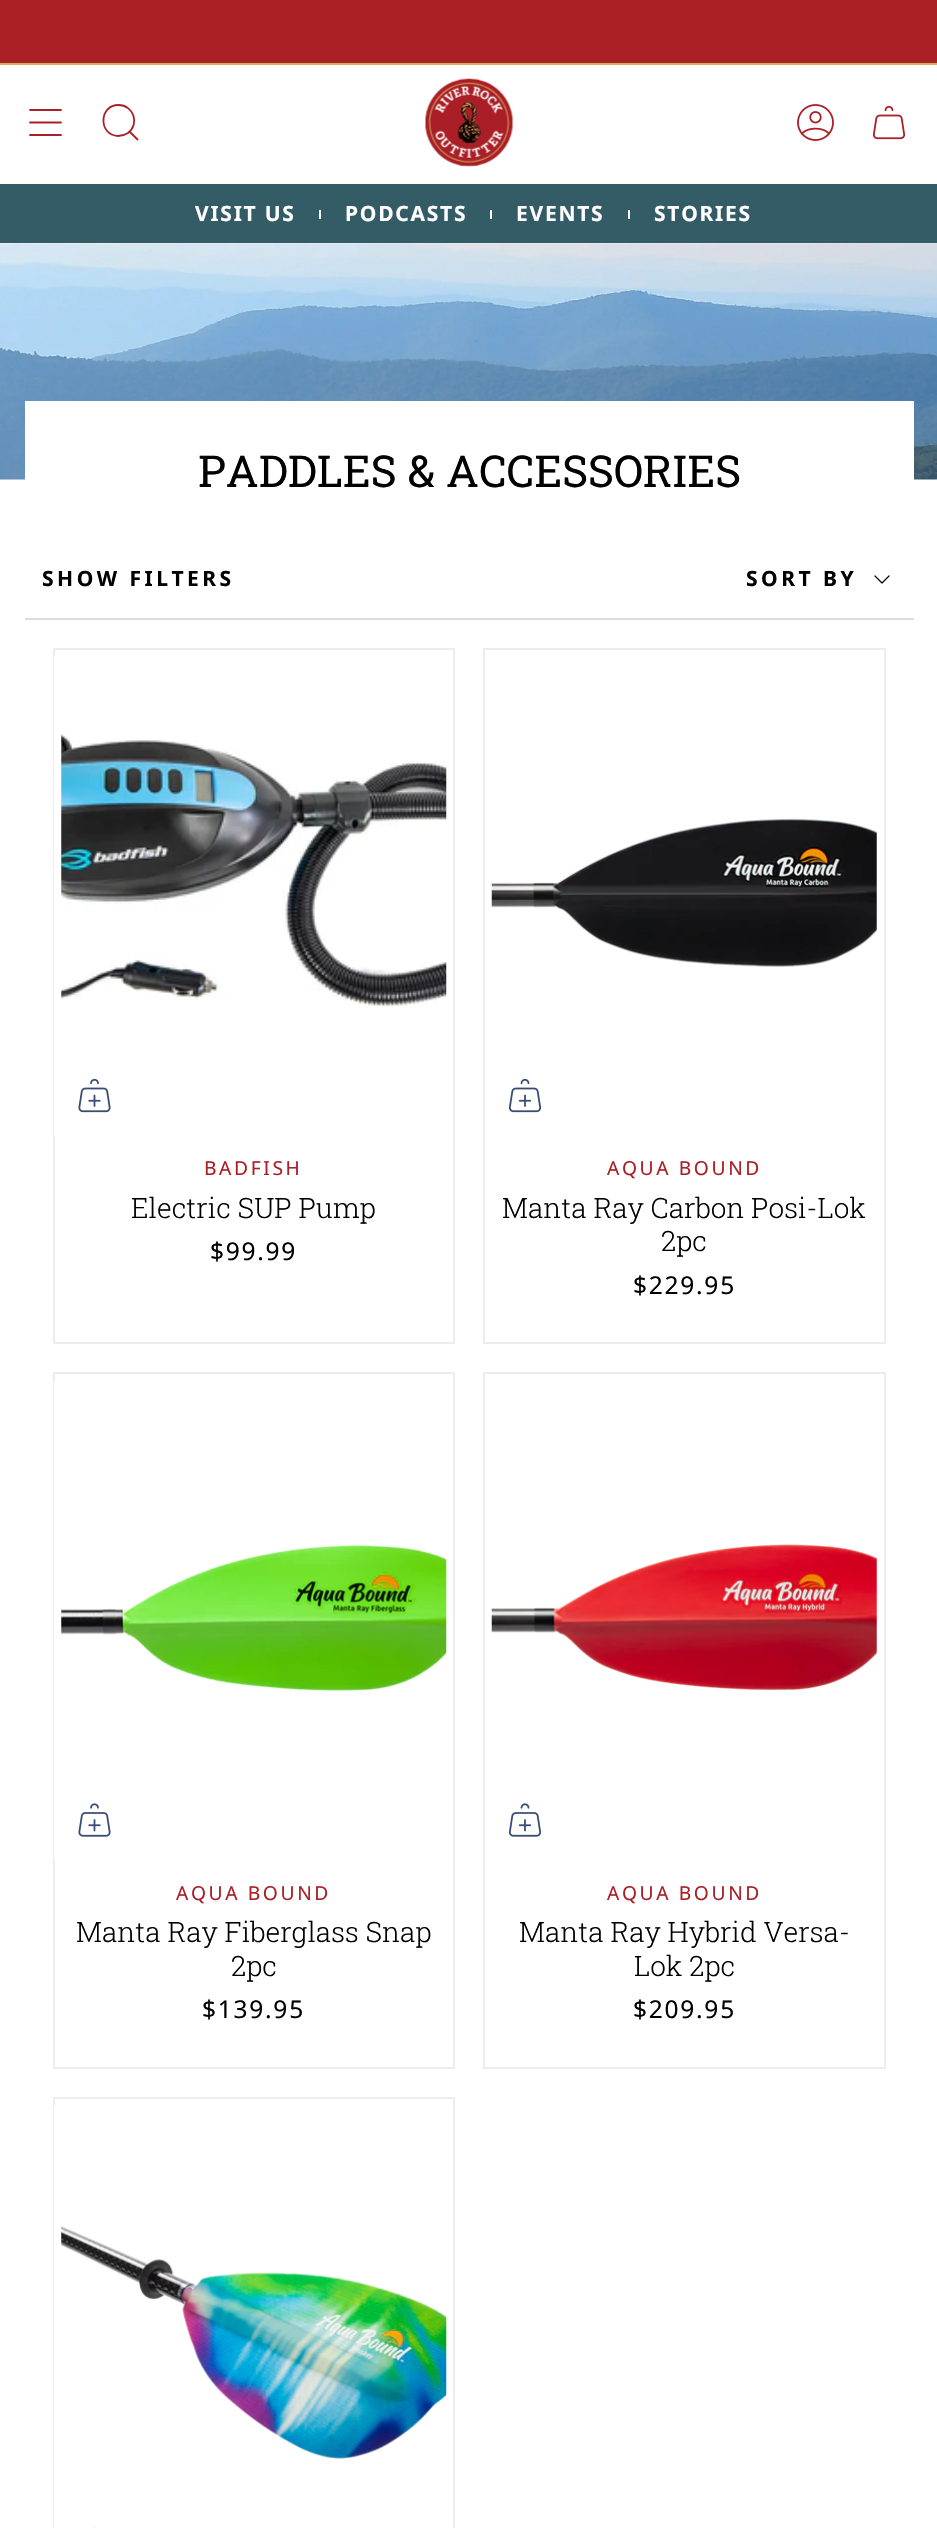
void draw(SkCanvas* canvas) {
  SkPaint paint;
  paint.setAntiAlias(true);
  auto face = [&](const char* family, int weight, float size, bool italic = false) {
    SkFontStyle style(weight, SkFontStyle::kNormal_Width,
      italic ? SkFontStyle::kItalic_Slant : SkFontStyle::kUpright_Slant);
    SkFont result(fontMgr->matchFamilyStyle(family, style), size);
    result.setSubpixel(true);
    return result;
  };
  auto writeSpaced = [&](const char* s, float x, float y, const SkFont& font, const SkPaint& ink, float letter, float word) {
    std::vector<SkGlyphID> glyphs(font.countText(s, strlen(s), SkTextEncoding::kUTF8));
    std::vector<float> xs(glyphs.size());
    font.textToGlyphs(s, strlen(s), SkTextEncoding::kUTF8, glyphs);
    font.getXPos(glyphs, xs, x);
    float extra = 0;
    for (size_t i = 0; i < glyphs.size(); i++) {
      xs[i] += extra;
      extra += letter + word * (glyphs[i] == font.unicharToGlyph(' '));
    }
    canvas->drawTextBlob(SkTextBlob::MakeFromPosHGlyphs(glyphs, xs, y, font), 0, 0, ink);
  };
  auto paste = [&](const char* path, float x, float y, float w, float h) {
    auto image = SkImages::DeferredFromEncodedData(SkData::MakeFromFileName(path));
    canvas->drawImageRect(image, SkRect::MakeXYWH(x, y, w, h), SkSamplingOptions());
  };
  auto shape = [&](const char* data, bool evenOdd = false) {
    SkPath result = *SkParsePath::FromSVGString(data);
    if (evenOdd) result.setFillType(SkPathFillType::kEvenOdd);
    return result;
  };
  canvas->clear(0xffffffff);
  paint.setColor(0xffab1f27);
  canvas->drawRect(SkRect::MakeXYWH(0, 0, 937, 63), paint);
  paint.setColor(0xffd4ae61);
  canvas->drawRect(SkRect::MakeXYWH(0, 63, 937, 2), paint);
  paint.setStroke(true);
  paint.setStrokeWidth(1.8f);
  paint.setStrokeCap(SkPaint::kRound_Cap);
  paint.setStrokeJoin(SkPaint::kRound_Join);
  paint.setColor(0xffab1f27);
  canvas->drawPath(shape("M30 110H61M30 122.5H61M30 135H61"), paint);
  paint.setStrokeCap(SkPaint::kButt_Cap);
  paint.setStrokeJoin(SkPaint::kMiter_Join);
  canvas->drawPath(shape("M118.5 105C133.5 105 140 124 128 133C125 135 121.5 136 118 136C98 135 99 105 118.5 105ZM129.5 131.5L138 140"), paint);
  paste("img/1.png", 425, 78, 88, 89);
  paste("img/2.png", 797, 104, 37, 37);
  paste("img/3.png", 872, 105, 34, 35);
  paint.setStroke(false);
  {
    const struct { float x, y, w, h; SkColor color; } items[] = {
      {0, 184, 937, 59, 0xff335c67},
      {319, 210, 2, 9, 0xffffffff},
      {490, 210, 2, 9, 0xffffffff},
      {628, 210, 2, 9, 0xffffffff},
    };
    for (auto [x, y, w, h, color] : items) {
      paint.setColor(color);
      canvas->drawRect(SkRect::MakeXYWH(x, y, w, h), paint);
    }
  }
  paste("img/4.png", 0, 243, 937, 237);
  canvas->drawRect(SkRect::MakeXYWH(25, 401, 889, 79), paint);
  paint.setColor(0xffdddddd);
  canvas->drawRect(SkRect::MakeXYWH(25, 618, 889, 2), paint);
  paint.setStroke(true);
  paint.setStrokeWidth(1.2f);
  paint.setStrokeCap(SkPaint::kRound_Cap);
  paint.setStrokeJoin(SkPaint::kRound_Join);
  paint.setColor(0xff000000);
  canvas->drawPath(shape("M875 576L882 583L889 576"), paint);
  paint.setStrokeWidth(2);
  paint.setStrokeCap(SkPaint::kButt_Cap);
  paint.setStrokeJoin(SkPaint::kMiter_Join);
  paint.setColor(0xffededed);
  canvas->drawRect(SkRect::MakeXYWH(54, 649, 400, 694), paint);
  paint.setStroke(false);
  paint.setColor(0xffffffff);
  canvas->drawRect(SkRect::MakeXYWH(54, 656, 1, 480), paint);
  paste("img/5.png", 61, 734, 386, 273);
  paste("img/6.png", 78, 1078, 33, 35);
  paint.setStroke(true);
  paint.setColor(0xffededed);
  canvas->drawRect(SkRect::MakeXYWH(484, 649, 401, 694), paint);
  paste("img/7.png", 491, 818, 386, 149);
  paste("img/8.png", 508, 1078, 34, 35);
  canvas->drawRect(SkRect::MakeXYWH(54, 1373, 400, 695), paint);
  paint.setStroke(false);
  paint.setColor(0xffffffff);
  canvas->drawRect(SkRect::MakeXYWH(54, 1381, 1, 479), paint);
  paste("img/9.png", 61, 1545, 386, 146);
  paste("img/10.png", 78, 1803, 33, 34);
  paint.setStroke(true);
  paint.setColor(0xffededed);
  canvas->drawRect(SkRect::MakeXYWH(484, 1373, 401, 695), paint);
  paste("img/11.png", 491, 1544, 386, 147);
  paste("img/12.png", 508, 1803, 34, 34);
  canvas->drawRect(SkRect::MakeXYWH(54, 2098, 400, 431), paint);
  paint.setStroke(false);
  paint.setColor(0xffffffff);
  canvas->drawRect(SkRect::MakeXYWH(54, 2105, 1, 423), paint);
  paste("img/13.png", 61, 2226, 386, 233);
  paint.setColor(0xffebedf1);
  canvas->drawRect(SkRect::MakeXYWH(94, 2527, 1, 1), paint);
  auto f0 = face("Noto Sans", 700, 21);
  paint.setColor(0xffffffff);
  {
    const struct { const char* s; float x, y; } items[] = {
      {"VISIT US", 195, 221},
      {"PODCASTS", 345, 221},
      {"EVENTS", 516, 221},
      {"STORIES", 654, 221},
    };
    for (auto [s, x, y] : items) {
      writeSpaced(s, x, y, f0, paint, 1.75f, 0);
    }
  }
  auto f1 = face("Roboto Slab", 400, 43.9f);
  paint.setColor(0xff000000);
  canvas->drawString("PADDLES & ACCESSORIES", 198, 487, f1, paint);
  writeSpaced("SHOW FILTERS", 42, 586, f0, paint, 3.5f, 0);
  writeSpaced("SORT BY", 746, 586, f0, paint, 3.5f, 0);
  auto f2 = face("Noto Sans", 400, 19.25f);
  paint.setColor(0xffab1f27);
  writeSpaced("BADFISH", 204, 1175, f2, paint, 2.6f, 0);
  auto f3 = face("Roboto Slab", 300, 28);
  paint.setColor(0xff000000);
  canvas->drawString("Electric SUP Pump", 131, 1218, f3, paint);
  auto f4 = face("Noto Sans", 400, 24.5f);
  writeSpaced("$99.99", 210, 1260, f4, paint, 1.75f, 0);
  paint.setColor(0xffab1f27);
  writeSpaced("AQUA BOUND", 607, 1175, f2, paint, 2.6f, 0);
  paint.setColor(0xff000000);
  canvas->drawString("Manta Ray Carbon Posi-Lok", 502, 1218, f3, paint);
  canvas->drawString("2pc", 661, 1251, f3, paint);
  writeSpaced("$229.95", 633, 1294, f4, paint, 1.75f, 0);
  paint.setColor(0xffab1f27);
  writeSpaced("AQUA BOUND", 176, 1900, f2, paint, 2.6f, 0);
  paint.setColor(0xff000000);
  canvas->drawString("Manta Ray Fiberglass Snap", 76, 1942, f3, paint);
  canvas->drawString("2pc", 231, 1976, f3, paint);
  writeSpaced("$139.95", 202, 2018, f4, paint, 1.75f, 0);
  paint.setColor(0xffab1f27);
  writeSpaced("AQUA BOUND", 607, 1900, f2, paint, 2.6f, 0);
  paint.setColor(0xff000000);
  canvas->drawString("Manta Ray Hybrid Versa-", 519, 1942, f3, paint);
  canvas->drawString("Lok 2pc", 634, 1976, f3, paint);
  writeSpaced("$209.95", 633, 2018, f4, paint, 1.75f, 0);
}
